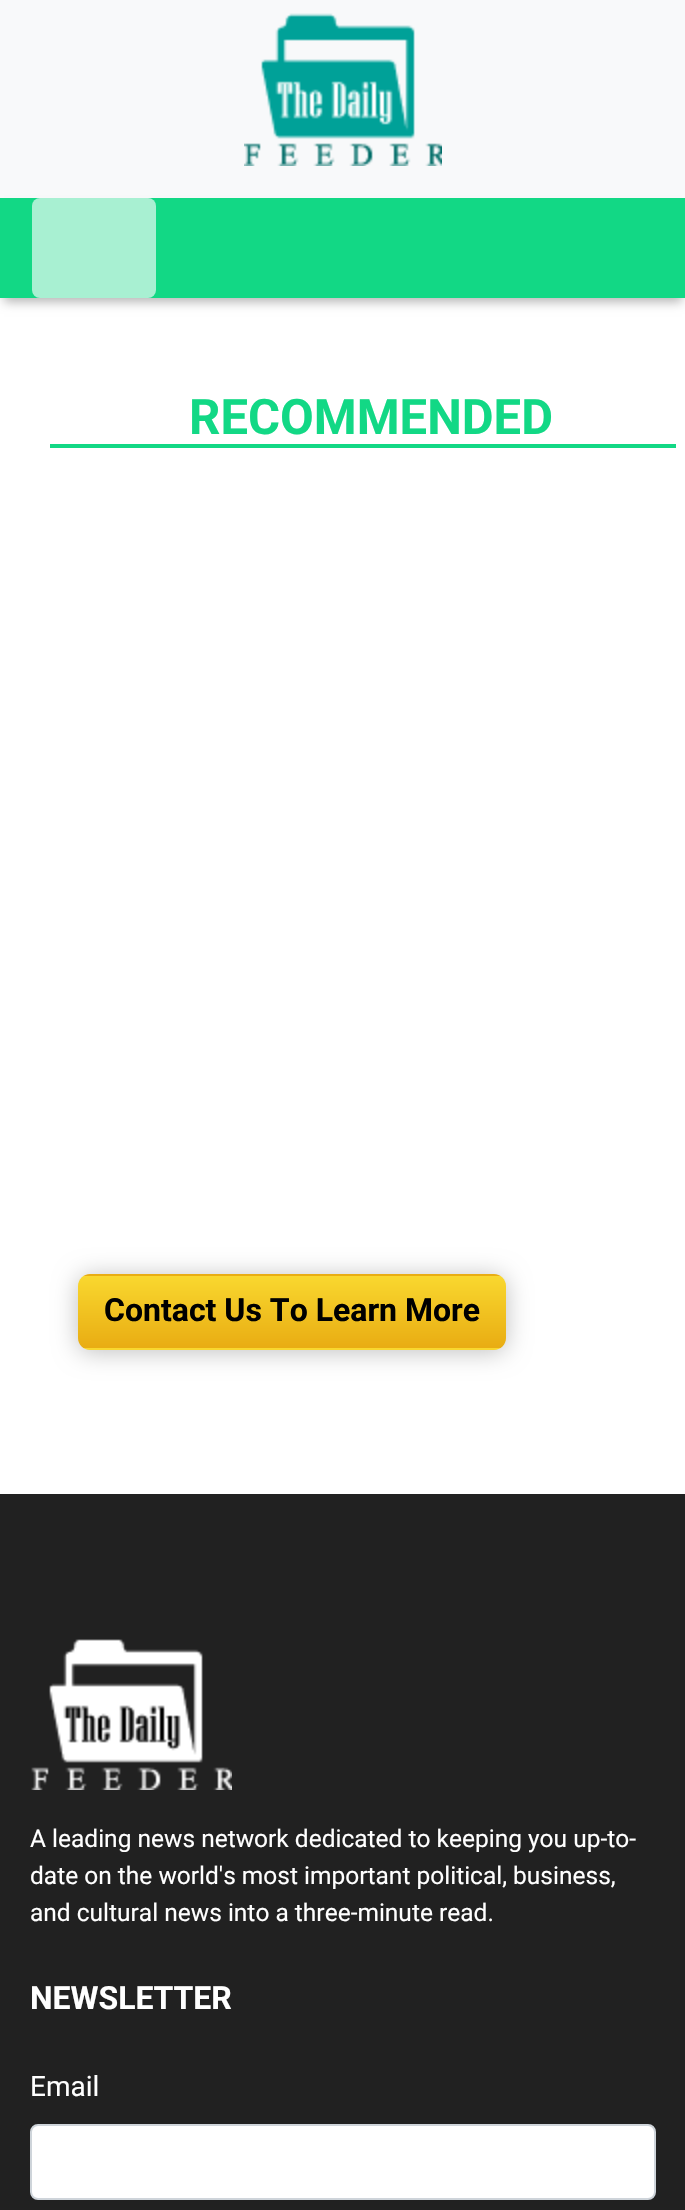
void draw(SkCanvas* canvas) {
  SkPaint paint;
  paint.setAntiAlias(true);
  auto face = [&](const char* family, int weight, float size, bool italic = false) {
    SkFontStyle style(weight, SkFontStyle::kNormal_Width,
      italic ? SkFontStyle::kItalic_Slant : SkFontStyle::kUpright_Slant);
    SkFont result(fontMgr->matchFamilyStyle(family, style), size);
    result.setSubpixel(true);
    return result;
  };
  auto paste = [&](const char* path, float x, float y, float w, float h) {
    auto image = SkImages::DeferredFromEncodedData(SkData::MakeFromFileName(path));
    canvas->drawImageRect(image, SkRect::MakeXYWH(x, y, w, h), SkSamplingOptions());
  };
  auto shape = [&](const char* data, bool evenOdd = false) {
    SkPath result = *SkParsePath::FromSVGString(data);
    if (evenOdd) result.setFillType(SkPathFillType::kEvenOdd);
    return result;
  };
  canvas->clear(0xffffffff);
  paint.setColor(0xfff8f9fa);
  canvas->drawRect(SkRect::MakeXYWH(0, 0, 685, 198), paint);
  paste("img/1.png", 244, 13, 198, 153);
  paint.setColor(0xffb6b6b6);
  paint.setMaskFilter(SkMaskFilter::MakeBlur(kNormal_SkBlurStyle, 5));
  canvas->drawRect(SkRect::MakeXYWH(4, 210, 678, 92), paint);
  paint.setMaskFilter(nullptr);
  paint.setColor(0xff12d885);
  canvas->drawRect(SkRect::MakeXYWH(0, 198, 685, 100), paint);
  paint.setColor(0xffa8f0d2);
  canvas->drawRoundRect(SkRect::MakeXYWH(32, 198, 124, 100), 8, 8, paint);
  paint.setColor(0xff12d885);
  canvas->drawRect(SkRect::MakeXYWH(50, 444, 626, 4), paint);
  paint.setColor(0x40000000);
  paint.setMaskFilter(SkMaskFilter::MakeBlur(kNormal_SkBlurStyle, 12));
  canvas->drawRoundRect(SkRect::MakeXYWH(78, 1276, 428, 76), 12, 12, paint);
  paint.setMaskFilter(nullptr);
  canvas->save();
  canvas->clipPath(shape("M90 1274H494C500.5 1274 506 1279.5 506 1286V1338C506 1344.5 500.5 1350 494 1350H90C83.5 1350 78 1344.5 78 1338V1286C78 1279.5 83.5 1274 90 1274Z"), true);
  {
    const SkColor colors[] = {0xfff9d82f, 0xffe9ad13};
    const float stops[] = {0.02f, 0.96f};
    const SkPoint ends[] = {{292, 1202}, {292, 1278}};
    paint.setShader(SkGradientShader::MakeLinear(ends, colors, stops, 2, SkTileMode::kClamp));
    paint.setAlpha(255);
  }
  canvas->drawRect(SkRect::MakeXYWH(80, 1274, 424, 2), paint);
  {
    const SkColor colors[] = {0xfff9d82f, 0xffe9ad13};
    const float stops[] = {0.02f, 0.96f};
    const SkPoint ends[] = {{-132, 1274}, {-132, 1350}};
    paint.setShader(SkGradientShader::MakeLinear(ends, colors, stops, 2, SkTileMode::kClamp));
    paint.setAlpha(255);
  }
  canvas->drawRect(SkRect::MakeXYWH(78, 1276, 2, 72), paint);
  {
    const SkColor colors[] = {0xfff9d82f, 0xffe9ad13};
    const float stops[] = {0.02f, 0.96f};
    const SkPoint ends[] = {{292, 1274}, {292, 1350}};
    paint.setShader(SkGradientShader::MakeLinear(ends, colors, stops, 2, SkTileMode::kClamp));
    paint.setAlpha(255);
  }
  canvas->drawRect(SkRect::MakeXYWH(80, 1276, 424, 72), paint);
  {
    const SkColor colors[] = {0xfff9d82f, 0xffe9ad13};
    const float stops[] = {0.02f, 0.96f};
    const SkPoint ends[] = {{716, 1274}, {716, 1350}};
    paint.setShader(SkGradientShader::MakeLinear(ends, colors, stops, 2, SkTileMode::kClamp));
    paint.setAlpha(255);
  }
  canvas->drawRect(SkRect::MakeXYWH(504, 1276, 2, 72), paint);
  {
    const SkColor colors[] = {0xfff9d82f, 0xffe9ad13};
    const float stops[] = {0.02f, 0.96f};
    const SkPoint ends[] = {{292, 1346}, {292, 1422}};
    paint.setShader(SkGradientShader::MakeLinear(ends, colors, stops, 2, SkTileMode::kClamp));
    paint.setAlpha(255);
  }
  canvas->drawRect(SkRect::MakeXYWH(80, 1348, 424, 2), paint);
  canvas->restore();
  paint.setShader(nullptr);
  paint.setColor(0xff212121);
  canvas->drawRect(SkRect::MakeXYWH(0, 1494, 685, 716), paint);
  paste("img/2.png", 31, 1639, 201, 151);
  paint.setColor(0xffffffff);
  canvas->drawRoundRect(SkRect::MakeXYWH(31, 2125, 624, 74), 7, 7, paint);
  paint.setStroke(true);
  paint.setStrokeWidth(2);
  paint.setColor(0xffced4da);
  canvas->drawRoundRect(SkRect::MakeXYWH(31, 2125, 624, 74), 7, 7, paint);
  auto f0 = face("Roboto", 700, 49);
  paint.setStroke(false);
  paint.setColor(0xff12d885);
  canvas->drawString("RECOMMENDED", 189, 434, f0, paint);
  auto f1 = face("Roboto", 700, 32);
  paint.setColor(0xff000000);
  canvas->drawString("Contact Us To Learn More", 104, 1321, f1, paint);
  auto f2 = face("Roboto", 400, 24.5f);
  paint.setColor(0xffffffff);
  {
    const struct { const char* s; float x, y; } items[] = {
      {"A leading news network dedicated to keeping you up-to-", 30, 1847},
      {"date on the world's most important political, business,", 30, 1884},
      {"and cultural news into a three-minute read.", 30, 1921},
    };
    for (auto [s, x, y] : items) {
      canvas->drawString(s, x, y, f2, paint);
    }
  }
  canvas->drawString("NEWSLETTER", 30, 2009, f1, paint);
  auto f3 = face("Roboto", 400, 28);
  canvas->drawString("Email", 30, 2096, f3, paint);
}
